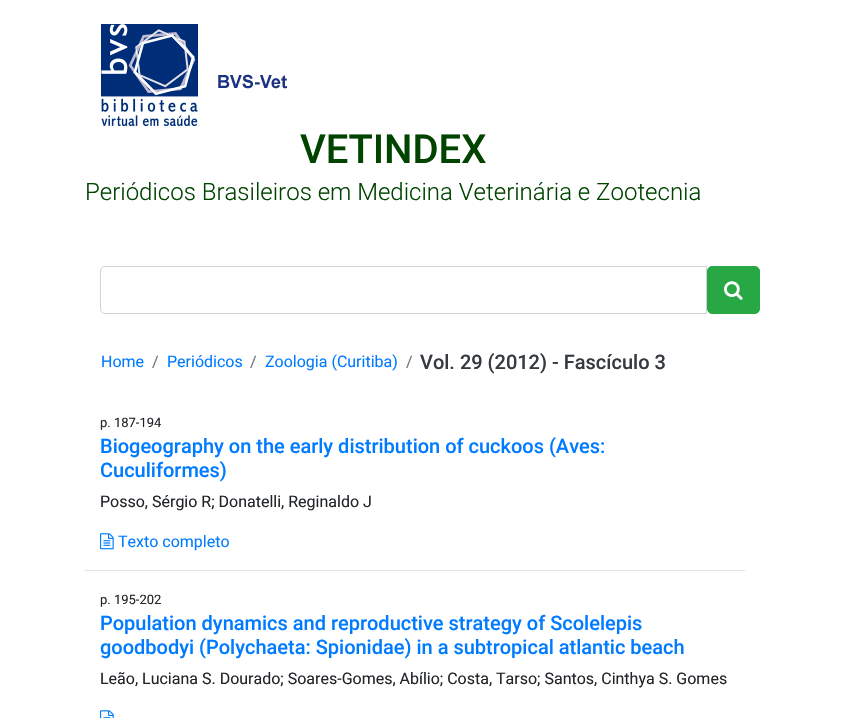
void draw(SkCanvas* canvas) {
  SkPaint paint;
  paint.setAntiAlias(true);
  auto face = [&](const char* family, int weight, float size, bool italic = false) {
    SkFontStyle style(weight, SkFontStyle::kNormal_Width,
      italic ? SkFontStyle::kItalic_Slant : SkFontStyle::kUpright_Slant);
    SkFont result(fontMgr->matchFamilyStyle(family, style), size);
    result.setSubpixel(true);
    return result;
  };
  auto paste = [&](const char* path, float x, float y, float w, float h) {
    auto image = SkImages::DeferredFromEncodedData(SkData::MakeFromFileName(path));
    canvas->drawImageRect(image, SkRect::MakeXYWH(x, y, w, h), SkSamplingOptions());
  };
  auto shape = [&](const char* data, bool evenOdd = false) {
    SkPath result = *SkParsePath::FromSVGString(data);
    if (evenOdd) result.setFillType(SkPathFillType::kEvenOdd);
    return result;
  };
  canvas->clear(0xffffffff);
  paste("img/1.png", 101, 24, 186, 102);
  paint.setStroke(true);
  paint.setStrokeWidth(1);
  paint.setColor(0xffced4da);
  canvas->drawPath(shape("M105 266.5H706.5V313.5H105C102.5 313.5 100.5 311.5 100.5 309V271C100.5 268.5 102.5 266.5 105 266.5Z"), paint);
  paint.setStroke(false);
  paint.setColor(0xff28a745);
  canvas->drawRoundRect(SkRect::MakeXYWH(707.5f, 266.5f, 52, 47), 4.5f, 4.5f, paint);
  paint.setStroke(true);
  canvas->drawRoundRect(SkRect::MakeXYWH(707.5f, 266.5f, 52, 47), 4.5f, 4.5f, paint);
  paste("img/2.png", 724, 281, 19, 19);
  paint.setStroke(false);
  paint.setColor(0xffdee2e6);
  canvas->drawRect(SkRect::MakeXYWH(85, 570, 660, 1), paint);
  paste("img/3.png", 100, 533, 14, 17);
  paste("img/4.png", 100, 710, 14, 8);
  auto f0 = face("Roboto", 500, 40);
  paint.setColor(0xff004400);
  canvas->drawString("VETINDEX", 300, 163, f0, paint);
  auto f1 = face("Roboto", 300, 24);
  canvas->drawString("Periódicos Brasileiros em Medicina Veterinária e Zootecnia", 85, 200, f1, paint);
  auto f2 = face("Roboto", 400, 16);
  paint.setColor(0xff007bff);
  canvas->drawString("Home", 101, 367, f2, paint);
  paint.setColor(0xff6c757d);
  canvas->drawString("/", 152, 367, f2, paint);
  paint.setColor(0xff007bff);
  canvas->drawString("Periódicos", 167, 367, f2, paint);
  paint.setColor(0xff6c757d);
  canvas->drawString("/", 250, 367, f2, paint);
  paint.setColor(0xff007bff);
  canvas->drawString("Zoologia (Curitiba)", 265, 367, f2, paint);
  paint.setColor(0xff6c757d);
  canvas->drawString("/", 406, 367, f2, paint);
  auto f3 = face("Roboto", 500, 20);
  paint.setColor(0xff343a40);
  canvas->drawString("Vol. 29 (2012) - Fascículo 3", 420, 369, f3, paint);
  auto f4 = face("Roboto", 400, 13);
  paint.setColor(0xff212529);
  canvas->drawString("p. 187-194", 100, 427, f4, paint);
  paint.setColor(0xff007bff);
  canvas->drawString("Biogeography on the early distribution of cuckoos (Aves:", 100, 453, f3, paint);
  canvas->drawString("Cuculiformes)", 100, 477, f3, paint);
  paint.setColor(0xff212529);
  canvas->drawString("Posso, Sérgio R; Donatelli, Reginaldo J", 100, 507, f2, paint);
  paint.setColor(0xff007bff);
  canvas->drawString("Texto completo", 118, 547, f2, paint);
  paint.setColor(0xff212529);
  canvas->drawString("p. 195-202", 100, 604, f4, paint);
  paint.setColor(0xff007bff);
  canvas->drawString("Population dynamics and reproductive strategy of Scolelepis", 100, 630, f3, paint);
  canvas->drawString("goodbodyi (Polychaeta: Spionidae) in a subtropical atlantic beach", 100, 654, f3, paint);
  paint.setColor(0xff212529);
  canvas->drawString("Leão, Luciana S. Dourado; Soares-Gomes, Abílio; Costa, Tarso; Santos, Cinthya S. Gomes", 100, 684, f2, paint);
}
